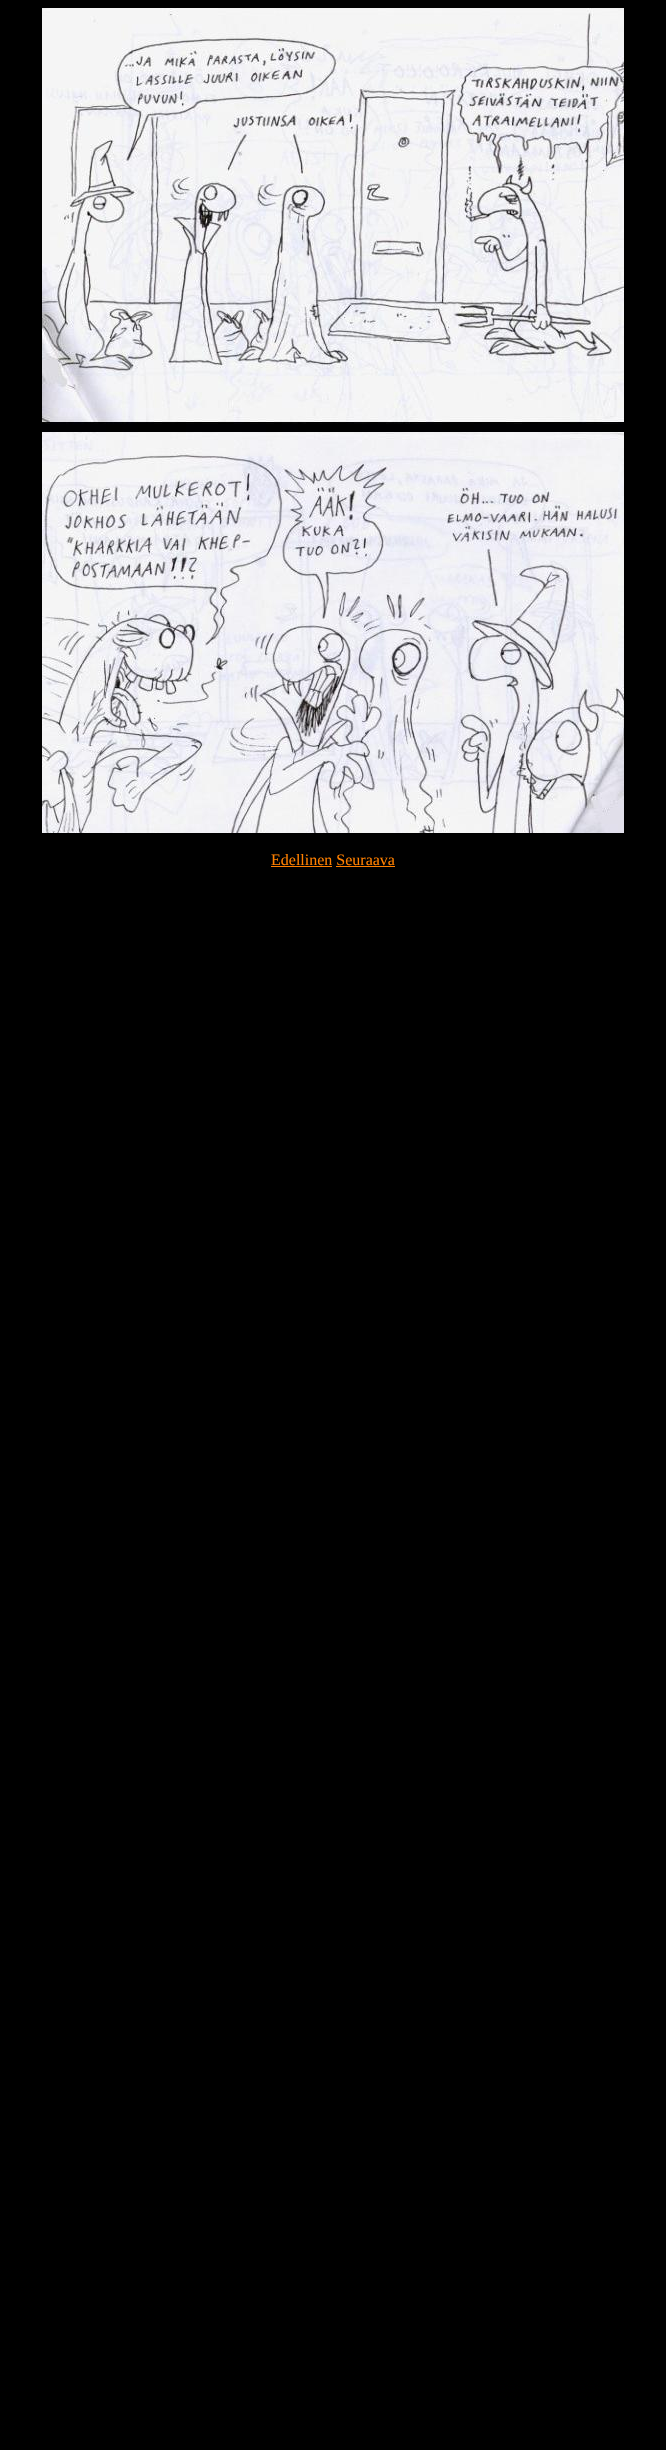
void draw(SkCanvas* canvas) {
  SkPaint paint;
  paint.setAntiAlias(true);
  auto face = [&](const char* family, int weight, float size, bool italic = false) {
    SkFontStyle style(weight, SkFontStyle::kNormal_Width,
      italic ? SkFontStyle::kItalic_Slant : SkFontStyle::kUpright_Slant);
    SkFont result(fontMgr->matchFamilyStyle(family, style), size);
    result.setSubpixel(true);
    return result;
  };
  auto paste = [&](const char* path, float x, float y, float w, float h) {
    auto image = SkImages::DeferredFromEncodedData(SkData::MakeFromFileName(path));
    canvas->drawImageRect(image, SkRect::MakeXYWH(x, y, w, h), SkSamplingOptions());
  };
  canvas->clear(0xff000000);
  paste("img/1.png", 42, 8, 582, 825);
  paint.setColor(0xffff8000);
  canvas->drawRect(SkRect::MakeXYWH(271, 866, 61, 1), paint);
  canvas->drawRect(SkRect::MakeXYWH(336, 866, 59, 1), paint);
  auto f0 = face("Liberation Serif", 400, 16);
  canvas->drawString("Edellinen Seuraava", 271, 865, f0, paint);
}
